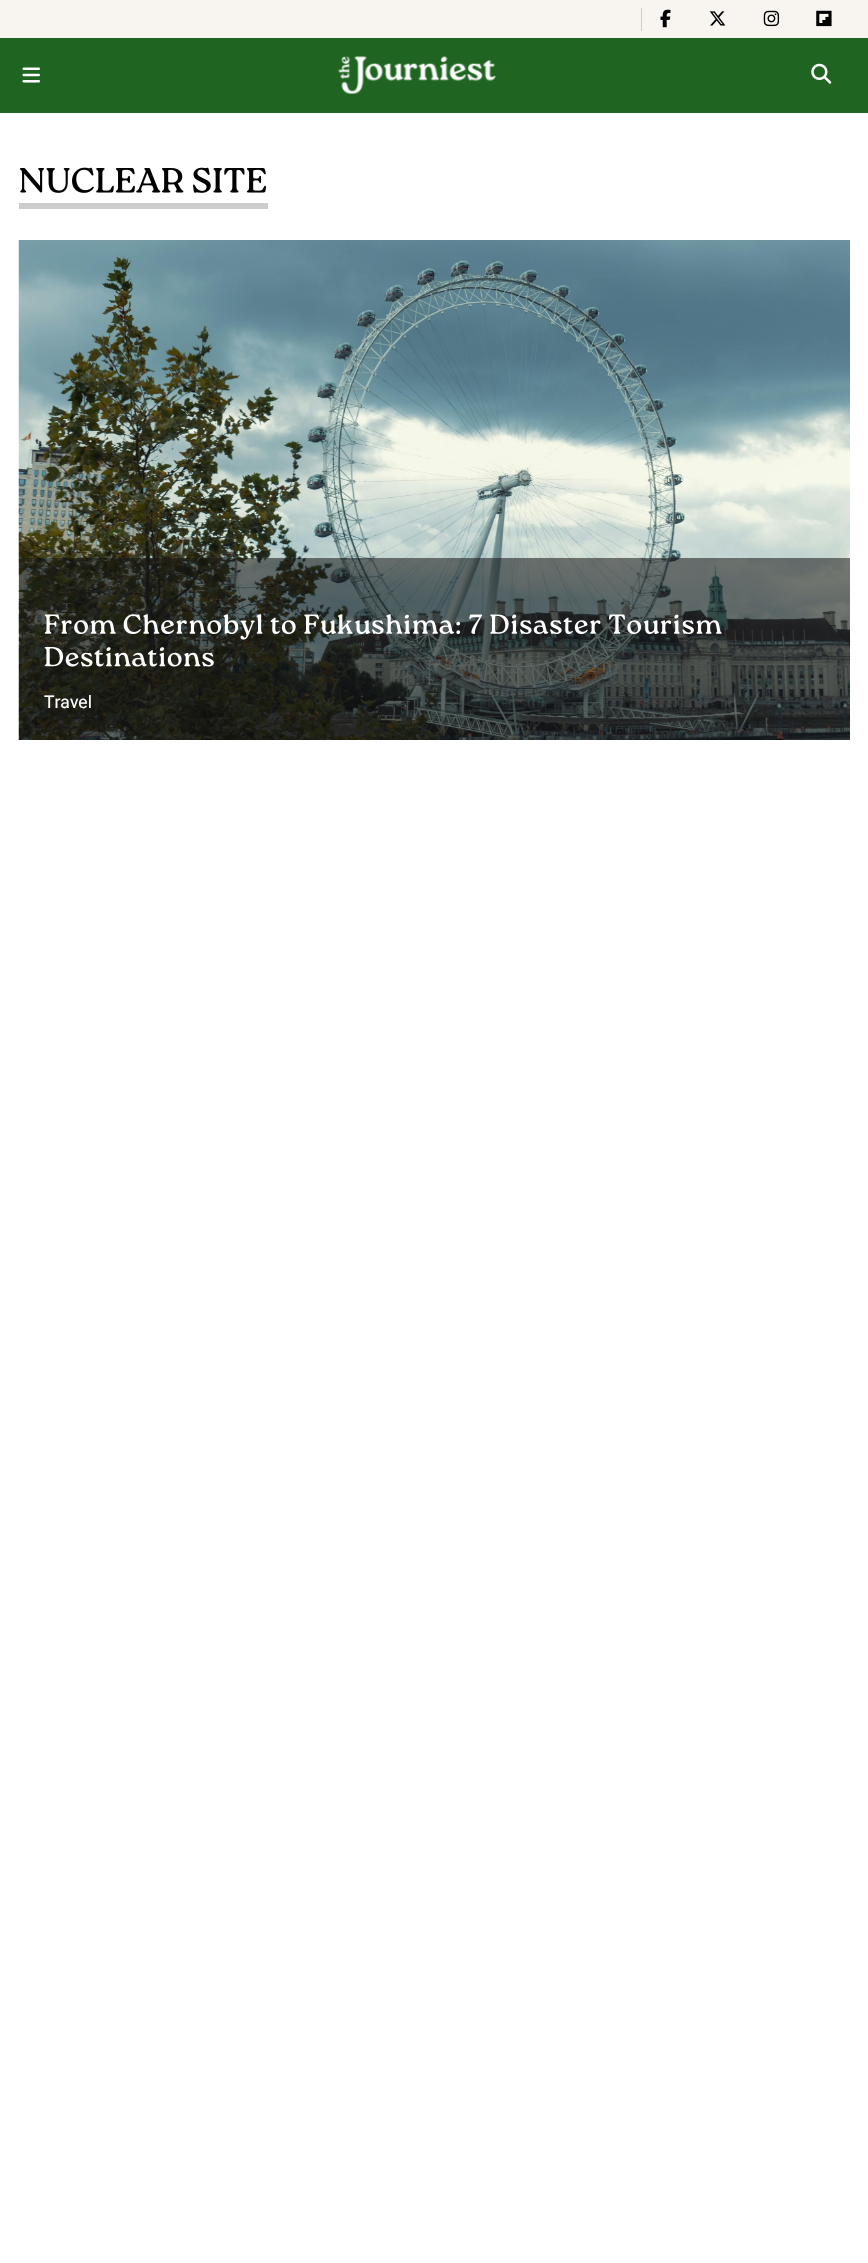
void draw(SkCanvas* canvas) {
  SkPaint paint;
  paint.setAntiAlias(true);
  auto face = [&](const char* family, int weight, float size, bool italic = false) {
    SkFontStyle style(weight, SkFontStyle::kNormal_Width,
      italic ? SkFontStyle::kItalic_Slant : SkFontStyle::kUpright_Slant);
    SkFont result(fontMgr->matchFamilyStyle(family, style), size);
    result.setSubpixel(true);
    return result;
  };
  auto paste = [&](const char* path, float x, float y, float w, float h) {
    auto image = SkImages::DeferredFromEncodedData(SkData::MakeFromFileName(path));
    canvas->drawImageRect(image, SkRect::MakeXYWH(x, y, w, h), SkSamplingOptions());
  };
  canvas->clear(0xffffffff);
  {
    const struct { float x, y, w, h; SkColor color; } items[] = {
      {0, 38, 868, 75, 0xff1f6521},
      {0, 0, 868, 38, 0xfff8f5f0},
      {641, 8, 1, 23, 0xffcccccc},
    };
    for (auto [x, y, w, h, color] : items) {
      paint.setColor(color);
      canvas->drawRect(SkRect::MakeXYWH(x, y, w, h), paint);
    }
  }
  paste("img/1.png", 660, 9, 11, 19);
  paste("img/2.png", 709, 11, 17, 15);
  paste("img/3.png", 763, 10, 17, 17);
  paste("img/4.png", 816, 10, 16, 17);
  paste("img/5.png", 22, 67, 18, 16);
  paste("img/6.png", 338, 56, 158, 38);
  paste("img/7.png", 811, 63, 21, 21);
  canvas->drawRect(SkRect::MakeXYWH(19, 203, 249, 6), paint);
  paste("img/8.png", 19, 167, 247, 26);
  paste("img/9.png", 18, 240, 832, 500);
  paint.setColor(0x8a121212);
  canvas->drawRect(SkRect::MakeXYWH(19, 558, 831, 182), paint);
  paste("img/10.png", 44, 614, 678, 26);
  paste("img/11.png", 44, 647, 170, 20);
  auto f0 = face("Roboto", 400, 17.5f);
  paint.setColor(0xffffffff);
  canvas->drawString("Travel", 44, 708, f0, paint);
}
